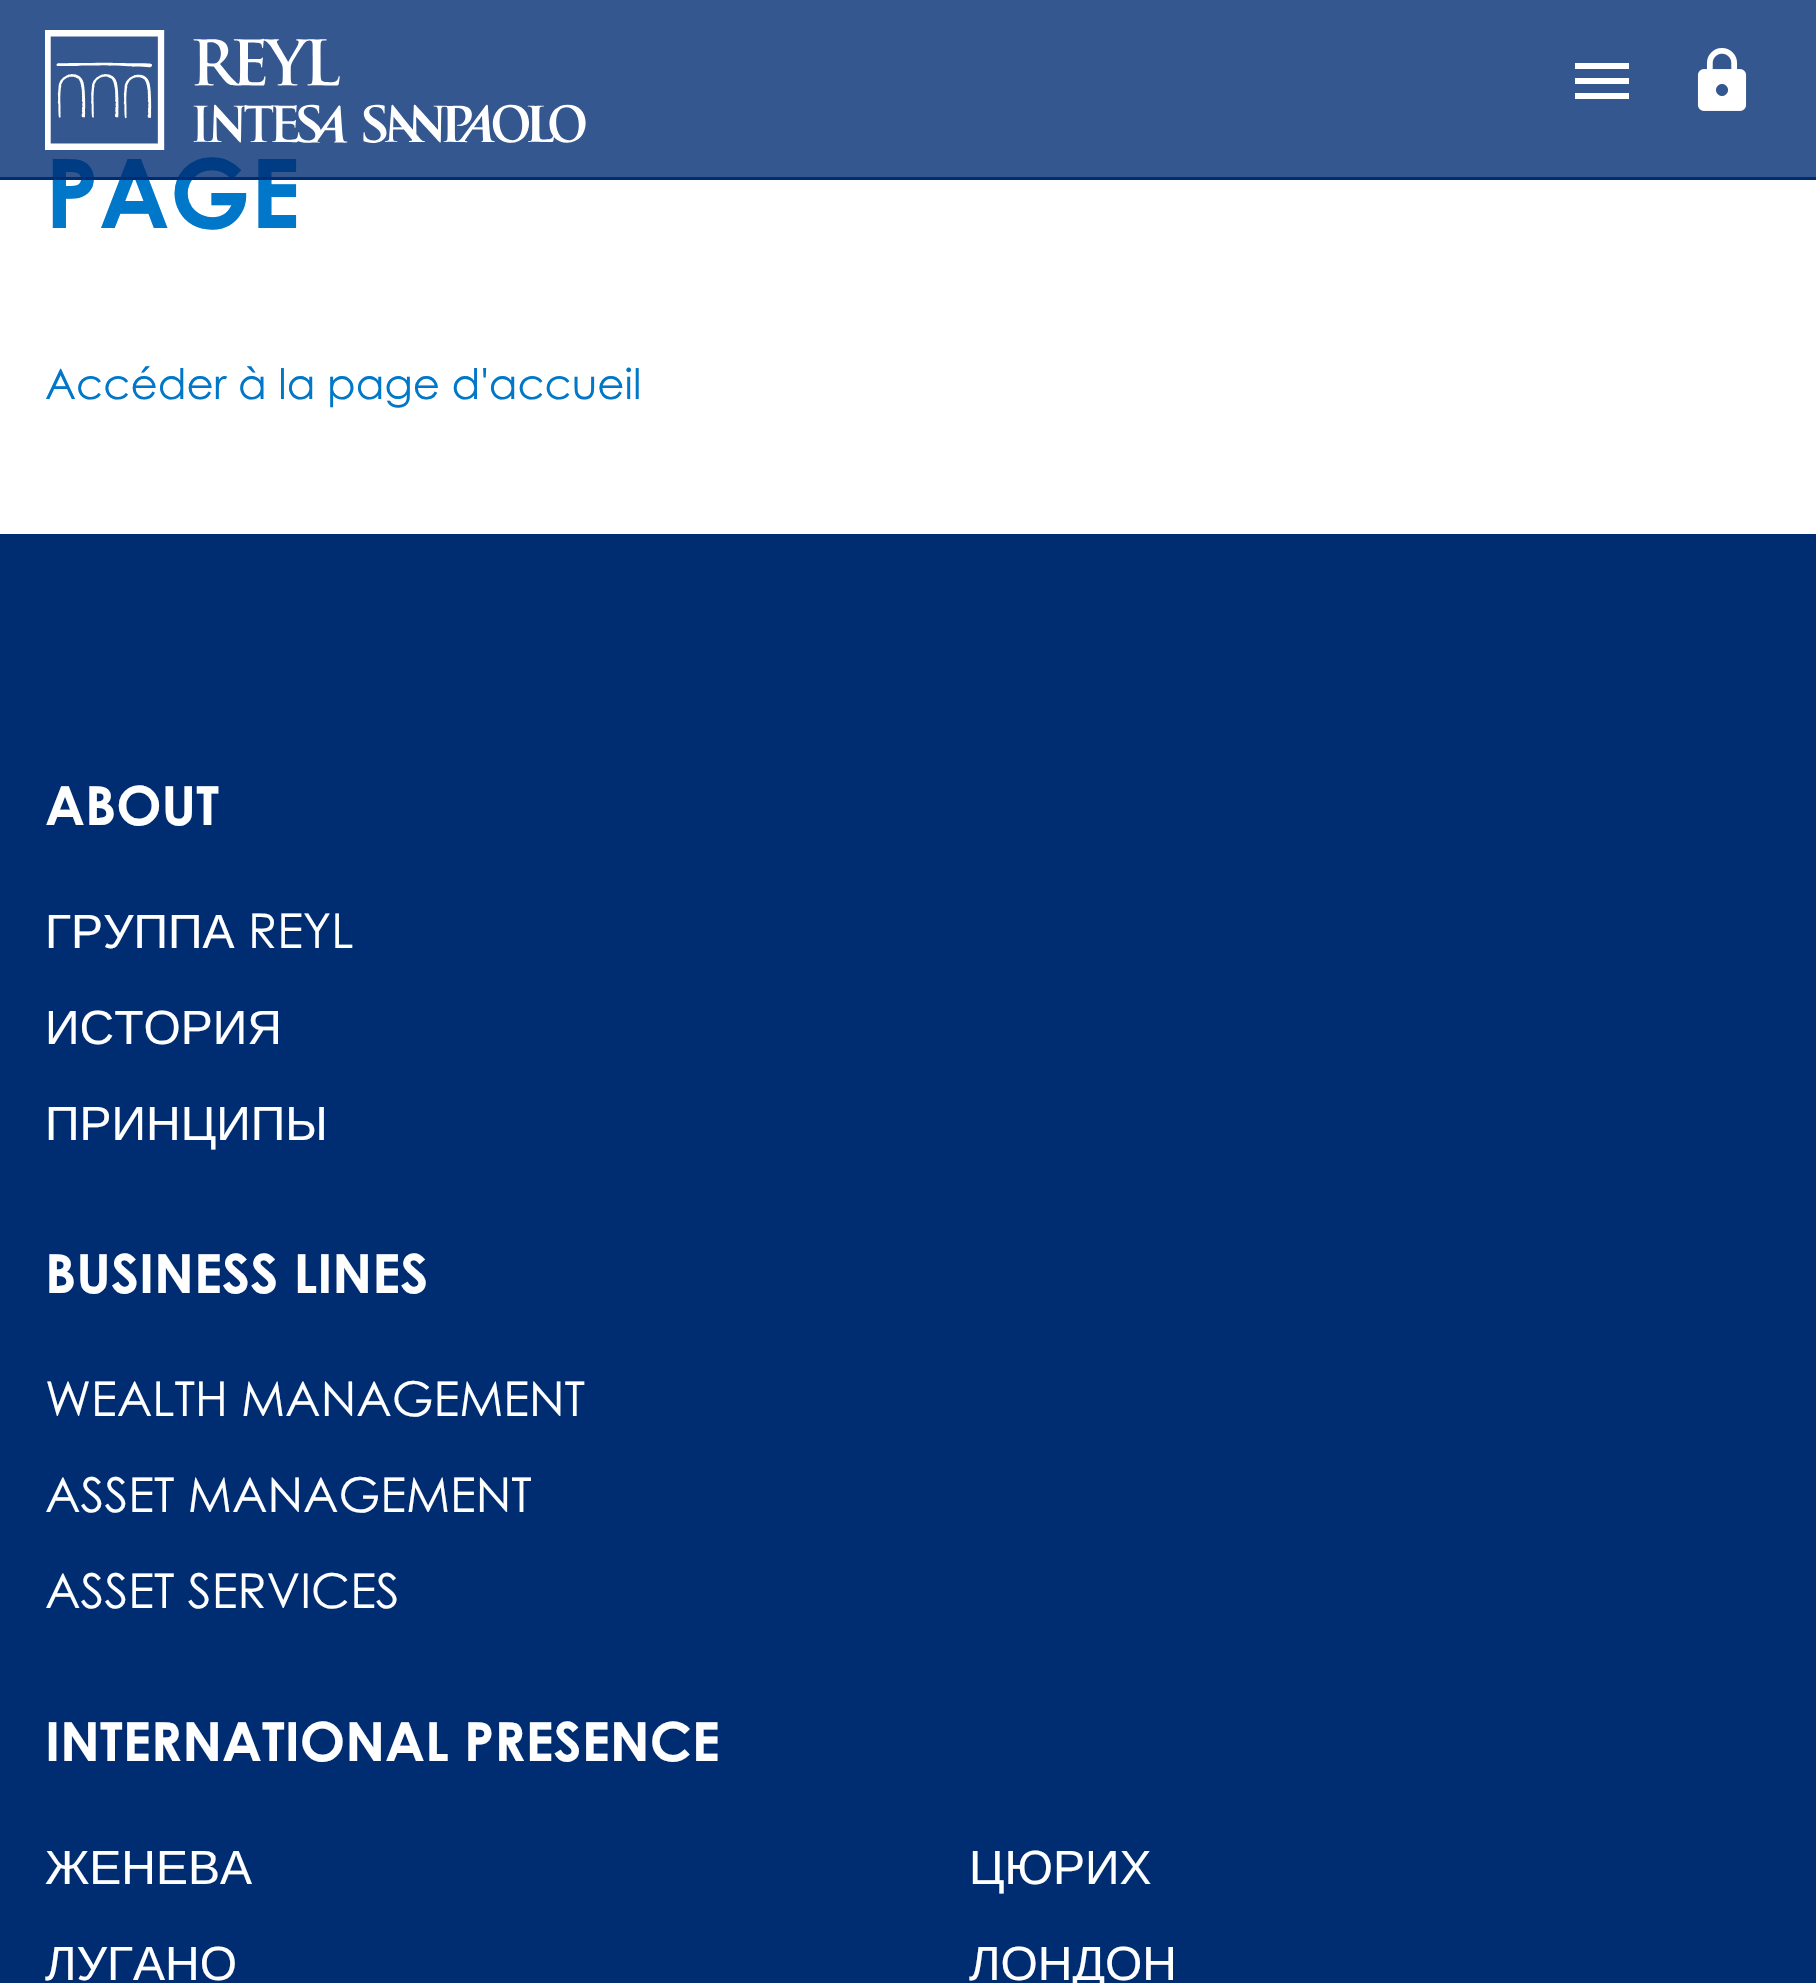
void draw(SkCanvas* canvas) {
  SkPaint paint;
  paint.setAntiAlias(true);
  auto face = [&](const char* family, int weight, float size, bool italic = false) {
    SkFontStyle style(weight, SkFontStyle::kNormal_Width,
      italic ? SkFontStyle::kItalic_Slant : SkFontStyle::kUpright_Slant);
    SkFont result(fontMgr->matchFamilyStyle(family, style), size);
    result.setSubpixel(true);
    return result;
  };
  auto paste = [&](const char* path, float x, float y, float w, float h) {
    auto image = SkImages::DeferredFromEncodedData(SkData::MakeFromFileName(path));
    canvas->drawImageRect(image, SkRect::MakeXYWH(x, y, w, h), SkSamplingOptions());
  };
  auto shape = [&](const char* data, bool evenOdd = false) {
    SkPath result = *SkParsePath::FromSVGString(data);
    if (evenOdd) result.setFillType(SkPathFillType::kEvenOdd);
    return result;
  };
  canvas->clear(0xffffffff);
  paint.setColor(0xff002d72);
  canvas->drawRect(SkRect::MakeXYWH(0, 534, 1816, 1449), paint);
  auto f0 = face("Century Gothic", 700, 96);
  paint.setColor(0xff0077c8);
  canvas->drawString("PAGE", 45, 228, f0, paint);
  paint.setColor(0xcc002d72);
  canvas->drawRect(SkRect::MakeXYWH(0, 0, 1816, 177), paint);
  paste("img/2.png", 1697, 48, 50, 63);
  paint.setColor(0xffffffff);
  canvas->drawPath(shape("M1575 63H1629V69H1575ZM1575 84V78H1629V84ZM1575 99V93H1629V99Z"), paint);
  paste("img/1.png", 45, 30, 541, 120);
  paint.setColor(0xff002d72);
  canvas->drawRect(SkRect::MakeXYWH(0, 177, 1816, 3), paint);
  auto f1 = face("Century Gothic", 400, 42);
  paint.setColor(0xff0077c8);
  canvas->drawString("Accéder à la page d'accueil", 45, 399, f1, paint);
  auto f2 = face("Century Gothic", 700, 54);
  paint.setColor(0xffffffff);
  canvas->drawString("ABOUT", 45, 825, f2, paint);
  auto f3 = face("Liberation Sans", 400, 48);
  canvas->drawString("ГРУППА", 45, 948, f3, paint);
  auto f4 = face("Century Gothic", 400, 48);
  canvas->drawString("REYL", 248, 948, f4, paint);
  canvas->drawString("ИСТОРИЯ", 45, 1044, f3, paint);
  canvas->drawString("ПРИНЦИПЫ", 45, 1140, f3, paint);
  canvas->drawString("BUSINESS LINES", 45, 1293, f2, paint);
  {
    const struct { const char* s; float x, y; } items[] = {
      {"WEALTH MANAGEMENT", 45, 1416},
      {"ASSET MANAGEMENT", 45, 1512},
      {"ASSET SERVICES", 45, 1608},
    };
    for (auto [s, x, y] : items) {
      canvas->drawString(s, x, y, f4, paint);
    }
  }
  canvas->drawString("INTERNATIONAL PRESENCE", 45, 1761, f2, paint);
  {
    const struct { const char* s; float x, y; } items[] = {
      {"ЖЕНЕВА", 45, 1884},
      {"ЦЮРИХ", 969, 1884},
      {"ЛУГАНО", 45, 1980},
      {"ЛОНДОН", 969, 1980},
    };
    for (auto [s, x, y] : items) {
      canvas->drawString(s, x, y, f3, paint);
    }
  }
}
